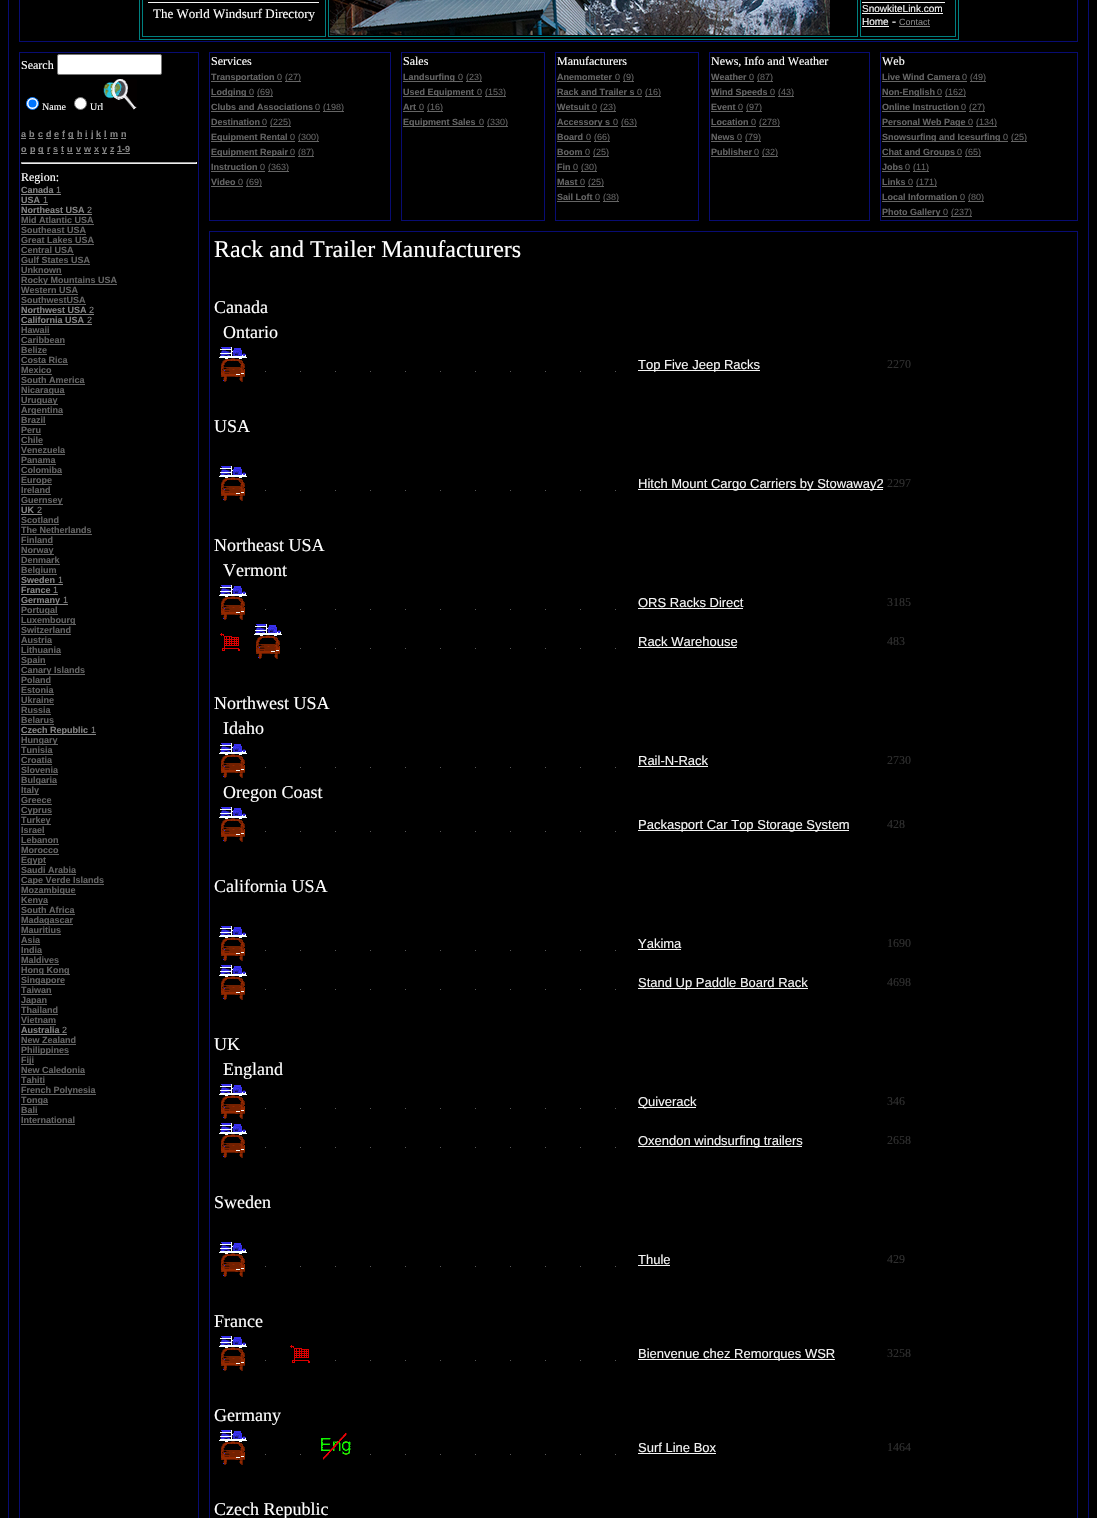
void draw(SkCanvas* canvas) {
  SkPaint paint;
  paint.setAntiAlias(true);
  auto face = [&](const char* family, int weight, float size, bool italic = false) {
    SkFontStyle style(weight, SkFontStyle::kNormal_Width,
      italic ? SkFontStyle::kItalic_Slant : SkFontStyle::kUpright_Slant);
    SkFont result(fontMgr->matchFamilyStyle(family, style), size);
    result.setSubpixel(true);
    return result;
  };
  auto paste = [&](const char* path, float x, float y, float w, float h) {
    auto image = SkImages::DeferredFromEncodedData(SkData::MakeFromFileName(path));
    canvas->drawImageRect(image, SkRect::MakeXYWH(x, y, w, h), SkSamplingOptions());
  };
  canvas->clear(0xff000000);
  paint.setStroke(true);
  paint.setStrokeWidth(1);
  paint.setColor(0xff080c73);
  canvas->drawRect(SkRect::MakeXYWH(8.5f, -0.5f, 1080, 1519), paint);
  canvas->drawRect(SkRect::MakeXYWH(19.5f, -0.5f, 1058, 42), paint);
  paint.setColor(0xff008080);
  canvas->drawRect(SkRect::MakeXYWH(139.5f, -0.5f, 819, 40), paint);
  canvas->drawRect(SkRect::MakeXYWH(142.5f, -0.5f, 183, 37), paint);
  paint.setStroke(false);
  paint.setColor(0xfff5f5f5);
  canvas->drawRect(SkRect::MakeXYWH(148, 2, 171, 1), paint);
  paint.setStroke(true);
  paint.setColor(0xff008080);
  canvas->drawRect(SkRect::MakeXYWH(328.5f, -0.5f, 529, 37), paint);
  paste("img/1.png", 330, 0, 500, 35);
  canvas->drawRect(SkRect::MakeXYWH(860.5f, -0.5f, 95, 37), paint);
  paint.setStroke(false);
  {
    const struct { float x, y, w, h; SkColor color; } items[] = {
      {862, 2, 83, 1, 0xfff5f5f5},
      {862, 13, 81, 1, 0xfff5f5f5},
      {862, 26, 27, 1, 0xfff5f5f5},
      {899, 26, 31, 1, 0xff858585},
    };
    for (auto [x, y, w, h, color] : items) {
      paint.setColor(color);
      canvas->drawRect(SkRect::MakeXYWH(x, y, w, h), paint);
    }
  }
  paint.setStroke(true);
  paint.setColor(0xff080c73);
  canvas->drawRect(SkRect::MakeXYWH(19.5f, 52.5f, 179, 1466), paint);
  paint.setStroke(false);
  paint.setColor(0xffffffff);
  canvas->drawRoundRect(SkRect::MakeXYWH(57.5f, 54.5f, 104, 20), 1.5f, 1.5f, paint);
  paint.setStroke(true);
  paint.setColor(0xff767676);
  canvas->drawRoundRect(SkRect::MakeXYWH(57.5f, 54.5f, 104, 20), 1.5f, 1.5f, paint);
  paint.setStroke(false);
  paint.setColor(0xffffffff);
  canvas->drawCircle(32.5f, 103.5f, 6, paint);
  paint.setStroke(true);
  paint.setColor(0xff0075ff);
  canvas->drawCircle(32.5f, 103.5f, 6, paint);
  paint.setStroke(false);
  canvas->drawCircle(32.5f, 103.5f, 4, paint);
  paint.setColor(0xffffffff);
  canvas->drawCircle(80.5f, 103.5f, 6, paint);
  paint.setStroke(true);
  paint.setColor(0xff767676);
  canvas->drawCircle(80.5f, 103.5f, 6, paint);
  paint.setStroke(false);
  {
    const struct { float x, y, w, h; SkColor color; } items[] = {
      {21, 138, 5, 1, 0xff858585},
      {29, 138, 6, 1, 0xff858585},
      {38, 138, 5, 1, 0xff858585},
      {46, 138, 5, 1, 0xff858585},
      {54, 138, 5, 1, 0xff858585},
      {62, 138, 3, 1, 0xff858585},
      {68, 138, 6, 1, 0xff858585},
      {77, 138, 5, 1, 0xff858585},
      {85, 138, 3, 1, 0xff858585},
      {91, 138, 2, 1, 0xff858585},
      {96, 138, 5, 1, 0xff858585},
      {104, 138, 3, 1, 0xff858585},
      {110, 138, 8, 1, 0xff858585},
      {121, 138, 5, 1, 0xff858585},
      {21, 153, 6, 1, 0xff858585},
      {30, 153, 5, 1, 0xff858585},
      {38, 153, 6, 1, 0xff858585},
      {47, 153, 3, 1, 0xff858585},
      {53, 153, 5, 1, 0xff858585},
      {61, 153, 3, 1, 0xff858585},
      {67, 153, 6, 1, 0xff858585},
      {76, 153, 5, 1, 0xff858585},
      {84, 153, 7, 1, 0xff858585},
      {94, 153, 5, 1, 0xff858585},
      {102, 153, 5, 1, 0xff858585},
      {110, 153, 4, 1, 0xff858585},
      {117, 153, 13, 1, 0xff858585},
      {21, 162, 176, 1, 0xff9f9f9f},
      {196, 162, 1, 2, 0xffeeeeee},
      {21, 163, 176, 1, 0xffeeeeee},
      {21, 162, 1, 2, 0xff9f9f9f},
      {21, 194, 40, 1, 0xff858585},
      {21, 204, 27, 1, 0xff858585},
      {21, 214, 71, 1, 0xff858585},
      {21, 224, 73, 1, 0xff656565},
      {21, 234, 65, 1, 0xff656565},
      {21, 244, 73, 1, 0xff656565},
      {21, 254, 53, 1, 0xff656565},
      {21, 264, 69, 1, 0xff656565},
      {21, 274, 41, 1, 0xff656565},
      {21, 284, 96, 1, 0xff656565},
      {21, 294, 57, 1, 0xff656565},
      {21, 304, 65, 1, 0xff656565},
      {21, 314, 73, 1, 0xff858585},
      {21, 324, 71, 1, 0xff858585},
      {21, 334, 29, 1, 0xff656565},
      {21, 344, 44, 1, 0xff656565},
      {21, 354, 26, 1, 0xff656565},
      {21, 364, 47, 1, 0xff656565},
      {21, 374, 31, 1, 0xff656565},
      {21, 384, 64, 1, 0xff656565},
      {21, 394, 44, 1, 0xff656565},
      {21, 404, 37, 1, 0xff656565},
      {21, 414, 42, 1, 0xff656565},
      {21, 424, 25, 1, 0xff656565},
      {21, 434, 20, 1, 0xff656565},
      {21, 444, 22, 1, 0xff656565},
      {21, 454, 44, 1, 0xff656565},
      {21, 464, 35, 1, 0xff656565},
      {21, 474, 41, 1, 0xff656565},
      {21, 484, 31, 1, 0xff656565},
      {21, 494, 30, 1, 0xff656565},
      {21, 504, 42, 1, 0xff656565},
      {21, 514, 21, 1, 0xff858585},
      {21, 524, 38, 1, 0xff656565},
      {21, 534, 71, 1, 0xff656565},
      {21, 544, 32, 1, 0xff656565},
      {21, 554, 33, 1, 0xff656565},
      {21, 564, 39, 1, 0xff656565},
      {21, 574, 36, 1, 0xff656565},
      {21, 584, 42, 1, 0xff858585},
      {21, 594, 37, 1, 0xff858585},
      {21, 604, 47, 1, 0xff858585},
      {21, 614, 37, 1, 0xff656565},
      {21, 624, 55, 1, 0xff656565},
      {21, 634, 50, 1, 0xff656565},
      {21, 644, 31, 1, 0xff656565},
      {21, 654, 40, 1, 0xff656565},
      {21, 664, 25, 1, 0xff656565},
      {21, 674, 64, 1, 0xff656565},
      {21, 684, 30, 1, 0xff656565},
      {21, 694, 33, 1, 0xff656565},
      {21, 704, 33, 1, 0xff656565},
      {21, 714, 30, 1, 0xff656565},
      {21, 724, 33, 1, 0xff656565},
      {21, 734, 75, 1, 0xff858585},
      {21, 744, 37, 1, 0xff656565},
      {21, 754, 32, 1, 0xff656565},
      {21, 764, 31, 1, 0xff656565},
      {21, 774, 37, 1, 0xff656565},
      {21, 784, 36, 1, 0xff656565},
      {21, 794, 18, 1, 0xff656565},
      {21, 804, 31, 1, 0xff656565},
      {21, 814, 31, 1, 0xff656565},
      {21, 824, 30, 1, 0xff656565},
      {21, 834, 24, 1, 0xff656565},
      {21, 844, 38, 1, 0xff656565},
      {21, 854, 38, 1, 0xff656565},
      {21, 864, 25, 1, 0xff656565},
      {21, 874, 55, 1, 0xff656565},
      {21, 884, 83, 1, 0xff656565},
      {21, 894, 55, 1, 0xff656565},
      {21, 904, 27, 1, 0xff656565},
      {21, 914, 54, 1, 0xff656565},
      {21, 924, 52, 1, 0xff656565},
      {21, 934, 40, 1, 0xff656565},
      {21, 944, 19, 1, 0xff656565},
      {21, 954, 21, 1, 0xff656565},
      {21, 964, 38, 1, 0xff656565},
      {21, 974, 49, 1, 0xff656565},
      {21, 984, 44, 1, 0xff656565},
      {21, 994, 31, 1, 0xff656565},
      {21, 1004, 26, 1, 0xff656565},
      {21, 1014, 37, 1, 0xff656565},
      {21, 1024, 35, 1, 0xff656565},
      {21, 1034, 46, 1, 0xff858585},
      {21, 1044, 55, 1, 0xff656565},
      {21, 1054, 48, 1, 0xff656565},
      {21, 1064, 13, 1, 0xff656565},
      {21, 1074, 64, 1, 0xff656565},
      {21, 1084, 24, 1, 0xff656565},
      {21, 1094, 75, 1, 0xff656565},
      {21, 1104, 27, 1, 0xff656565},
      {21, 1114, 17, 1, 0xff656565},
      {21, 1124, 54, 1, 0xff656565},
    };
    for (auto [x, y, w, h, color] : items) {
      paint.setColor(color);
      canvas->drawRect(SkRect::MakeXYWH(x, y, w, h), paint);
    }
  }
  paint.setStroke(true);
  paint.setColor(0xff080c73);
  canvas->drawRect(SkRect::MakeXYWH(209.5f, 52.5f, 181, 168), paint);
  paint.setStroke(false);
  {
    const struct { float x, y, w, h; SkColor color; } items[] = {
      {211, 81, 71, 1, 0xff656565},
      {285, 81, 16, 1, 0xff656565},
      {211, 96, 43, 1, 0xff656565},
      {257, 96, 16, 1, 0xff656565},
      {211, 111, 109, 1, 0xff656565},
      {323, 111, 21, 1, 0xff656565},
      {211, 126, 56, 1, 0xff656565},
      {270, 126, 21, 1, 0xff656565},
      {211, 141, 84, 1, 0xff656565},
      {298, 141, 21, 1, 0xff656565},
      {211, 156, 84, 1, 0xff656565},
      {298, 156, 16, 1, 0xff656565},
      {211, 171, 54, 1, 0xff656565},
      {268, 171, 21, 1, 0xff656565},
      {211, 186, 32, 1, 0xff656565},
      {246, 186, 16, 1, 0xff656565},
    };
    for (auto [x, y, w, h, color] : items) {
      paint.setColor(color);
      canvas->drawRect(SkRect::MakeXYWH(x, y, w, h), paint);
    }
  }
  paint.setStroke(true);
  paint.setColor(0xff080c73);
  canvas->drawRect(SkRect::MakeXYWH(401.5f, 52.5f, 143, 168), paint);
  paint.setStroke(false);
  {
    const struct { float x, y, w, h; SkColor color; } items[] = {
      {403, 81, 60, 1, 0xff656565},
      {466, 81, 16, 1, 0xff656565},
      {403, 96, 71, 1, 0xff656565},
      {474, 96, 8, 1, 0xff656565},
      {485, 96, 21, 1, 0xff656565},
      {403, 111, 21, 1, 0xff656565},
      {427, 111, 16, 1, 0xff656565},
      {403, 126, 81, 1, 0xff656565},
      {487, 126, 21, 1, 0xff656565},
    };
    for (auto [x, y, w, h, color] : items) {
      paint.setColor(color);
      canvas->drawRect(SkRect::MakeXYWH(x, y, w, h), paint);
    }
  }
  paint.setStroke(true);
  paint.setColor(0xff080c73);
  canvas->drawRect(SkRect::MakeXYWH(555.5f, 52.5f, 143, 168), paint);
  paint.setStroke(false);
  {
    const struct { float x, y, w, h; SkColor color; } items[] = {
      {557, 81, 63, 1, 0xff656565},
      {623, 81, 11, 1, 0xff656565},
      {557, 96, 85, 1, 0xff656565},
      {645, 96, 16, 1, 0xff656565},
      {557, 111, 40, 1, 0xff656565},
      {600, 111, 16, 1, 0xff656565},
      {557, 126, 61, 1, 0xff656565},
      {621, 126, 16, 1, 0xff656565},
      {557, 141, 34, 1, 0xff656565},
      {594, 141, 16, 1, 0xff656565},
      {557, 156, 33, 1, 0xff656565},
      {593, 156, 16, 1, 0xff656565},
      {557, 171, 21, 1, 0xff656565},
      {581, 171, 16, 1, 0xff656565},
      {557, 186, 28, 1, 0xff656565},
      {588, 186, 16, 1, 0xff656565},
      {557, 201, 43, 1, 0xff656565},
      {603, 201, 16, 1, 0xff656565},
    };
    for (auto [x, y, w, h, color] : items) {
      paint.setColor(color);
      canvas->drawRect(SkRect::MakeXYWH(x, y, w, h), paint);
    }
  }
  paint.setStroke(true);
  paint.setColor(0xff080c73);
  canvas->drawRect(SkRect::MakeXYWH(709.5f, 52.5f, 160, 168), paint);
  paint.setStroke(false);
  {
    const struct { float x, y, w, h; SkColor color; } items[] = {
      {711, 81, 43, 1, 0xff656565},
      {757, 81, 16, 1, 0xff656565},
      {711, 96, 64, 1, 0xff656565},
      {778, 96, 16, 1, 0xff656565},
      {711, 111, 32, 1, 0xff656565},
      {746, 111, 16, 1, 0xff656565},
      {711, 126, 45, 1, 0xff656565},
      {759, 126, 21, 1, 0xff656565},
      {711, 141, 31, 1, 0xff656565},
      {745, 141, 16, 1, 0xff656565},
      {711, 156, 48, 1, 0xff656565},
      {762, 156, 16, 1, 0xff656565},
    };
    for (auto [x, y, w, h, color] : items) {
      paint.setColor(color);
      canvas->drawRect(SkRect::MakeXYWH(x, y, w, h), paint);
    }
  }
  paint.setStroke(true);
  paint.setColor(0xff080c73);
  canvas->drawRect(SkRect::MakeXYWH(880.5f, 52.5f, 197, 168), paint);
  paint.setStroke(false);
  {
    const struct { float x, y, w, h; SkColor color; } items[] = {
      {882, 81, 85, 1, 0xff656565},
      {970, 81, 16, 1, 0xff656565},
      {882, 96, 60, 1, 0xff656565},
      {945, 96, 21, 1, 0xff656565},
      {882, 111, 84, 1, 0xff656565},
      {969, 111, 16, 1, 0xff656565},
      {882, 126, 83, 1, 0xff656565},
      {965, 126, 8, 1, 0xff656565},
      {976, 126, 21, 1, 0xff656565},
      {882, 141, 126, 1, 0xff656565},
      {1011, 141, 16, 1, 0xff656565},
      {882, 156, 80, 1, 0xff656565},
      {965, 156, 16, 1, 0xff656565},
      {882, 171, 28, 1, 0xff656565},
      {913, 171, 16, 1, 0xff656565},
      {882, 186, 31, 1, 0xff656565},
      {916, 186, 21, 1, 0xff656565},
      {882, 201, 83, 1, 0xff656565},
      {968, 201, 16, 1, 0xff656565},
      {882, 216, 58, 1, 0xff656565},
      {940, 216, 8, 1, 0xff656565},
      {951, 216, 21, 1, 0xff656565},
    };
    for (auto [x, y, w, h, color] : items) {
      paint.setColor(color);
      canvas->drawRect(SkRect::MakeXYWH(x, y, w, h), paint);
    }
  }
  paint.setStroke(true);
  paint.setColor(0xff080c73);
  canvas->drawRect(SkRect::MakeXYWH(209.5f, 231.5f, 868, 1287), paint);
  paste("img/3.png", 219, 347, 28, 35);
  paint.setStroke(false);
  {
    const struct { float x, y, w, h; SkColor color; } items[] = {
      {265, 371, 1, 1, 0xff575757},
      {300, 371, 1, 1, 0xff575757},
      {335, 371, 1, 1, 0xff575757},
      {370, 371, 1, 1, 0xff575757},
      {405, 371, 1, 1, 0xff575757},
      {440, 371, 1, 1, 0xff575757},
      {475, 371, 1, 1, 0xff575757},
      {510, 371, 1, 1, 0xff575757},
      {545, 371, 1, 1, 0xff575757},
      {580, 371, 1, 1, 0xff575757},
      {615, 371, 1, 1, 0xff575757},
      {638, 370, 122, 1, 0xfff5f5f5},
    };
    for (auto [x, y, w, h, color] : items) {
      paint.setColor(color);
      canvas->drawRect(SkRect::MakeXYWH(x, y, w, h), paint);
    }
  }
  paste("img/3.png", 219, 466, 28, 35);
  {
    const struct { float x, y, w, h; SkColor color; } items[] = {
      {265, 490, 1, 1, 0xff575757},
      {300, 490, 1, 1, 0xff575757},
      {335, 490, 1, 1, 0xff575757},
      {370, 490, 1, 1, 0xff575757},
      {405, 490, 1, 1, 0xff575757},
      {440, 490, 1, 1, 0xff575757},
      {475, 490, 1, 1, 0xff575757},
      {510, 490, 1, 1, 0xff575757},
      {545, 490, 1, 1, 0xff575757},
      {580, 490, 1, 1, 0xff575757},
      {615, 490, 1, 1, 0xff575757},
      {638, 489, 245, 1, 0xfff5f5f5},
    };
    for (auto [x, y, w, h, color] : items) {
      paint.setColor(color);
      canvas->drawRect(SkRect::MakeXYWH(x, y, w, h), paint);
    }
  }
  paste("img/3.png", 219, 585, 28, 35);
  {
    const struct { float x, y, w, h; SkColor color; } items[] = {
      {265, 609, 1, 1, 0xff575757},
      {300, 609, 1, 1, 0xff575757},
      {335, 609, 1, 1, 0xff575757},
      {370, 609, 1, 1, 0xff575757},
      {405, 609, 1, 1, 0xff575757},
      {440, 609, 1, 1, 0xff575757},
      {475, 609, 1, 1, 0xff575757},
      {510, 609, 1, 1, 0xff575757},
      {545, 609, 1, 1, 0xff575757},
      {580, 609, 1, 1, 0xff575757},
      {615, 609, 1, 1, 0xff575757},
      {638, 608, 105, 1, 0xfff5f5f5},
    };
    for (auto [x, y, w, h, color] : items) {
      paint.setColor(color);
      canvas->drawRect(SkRect::MakeXYWH(x, y, w, h), paint);
    }
  }
  paste("img/4.png", 220, 633, 20, 18);
  paste("img/3.png", 254, 624, 28, 35);
  {
    const struct { float x, y, w, h; SkColor color; } items[] = {
      {300, 648, 1, 1, 0xff575757},
      {335, 648, 1, 1, 0xff575757},
      {370, 648, 1, 1, 0xff575757},
      {405, 648, 1, 1, 0xff575757},
      {440, 648, 1, 1, 0xff575757},
      {475, 648, 1, 1, 0xff575757},
      {510, 648, 1, 1, 0xff575757},
      {545, 648, 1, 1, 0xff575757},
      {580, 648, 1, 1, 0xff575757},
      {615, 648, 1, 1, 0xff575757},
      {638, 647, 99, 1, 0xfff5f5f5},
    };
    for (auto [x, y, w, h, color] : items) {
      paint.setColor(color);
      canvas->drawRect(SkRect::MakeXYWH(x, y, w, h), paint);
    }
  }
  paste("img/3.png", 219, 743, 28, 35);
  {
    const struct { float x, y, w, h; SkColor color; } items[] = {
      {265, 767, 1, 1, 0xff575757},
      {300, 767, 1, 1, 0xff575757},
      {335, 767, 1, 1, 0xff575757},
      {370, 767, 1, 1, 0xff575757},
      {405, 767, 1, 1, 0xff575757},
      {440, 767, 1, 1, 0xff575757},
      {475, 767, 1, 1, 0xff575757},
      {510, 767, 1, 1, 0xff575757},
      {545, 767, 1, 1, 0xff575757},
      {580, 767, 1, 1, 0xff575757},
      {615, 767, 1, 1, 0xff575757},
      {638, 766, 70, 1, 0xfff5f5f5},
    };
    for (auto [x, y, w, h, color] : items) {
      paint.setColor(color);
      canvas->drawRect(SkRect::MakeXYWH(x, y, w, h), paint);
    }
  }
  paste("img/3.png", 219, 807, 28, 35);
  {
    const struct { float x, y, w, h; SkColor color; } items[] = {
      {265, 831, 1, 1, 0xff575757},
      {300, 831, 1, 1, 0xff575757},
      {335, 831, 1, 1, 0xff575757},
      {370, 831, 1, 1, 0xff575757},
      {405, 831, 1, 1, 0xff575757},
      {440, 831, 1, 1, 0xff575757},
      {475, 831, 1, 1, 0xff575757},
      {510, 831, 1, 1, 0xff575757},
      {545, 831, 1, 1, 0xff575757},
      {580, 831, 1, 1, 0xff575757},
      {615, 831, 1, 1, 0xff575757},
      {638, 830, 211, 1, 0xfff5f5f5},
    };
    for (auto [x, y, w, h, color] : items) {
      paint.setColor(color);
      canvas->drawRect(SkRect::MakeXYWH(x, y, w, h), paint);
    }
  }
  paste("img/3.png", 219, 926, 28, 35);
  {
    const struct { float x, y, w, h; SkColor color; } items[] = {
      {265, 950, 1, 1, 0xff575757},
      {300, 950, 1, 1, 0xff575757},
      {335, 950, 1, 1, 0xff575757},
      {370, 950, 1, 1, 0xff575757},
      {405, 950, 1, 1, 0xff575757},
      {440, 950, 1, 1, 0xff575757},
      {475, 950, 1, 1, 0xff575757},
      {510, 950, 1, 1, 0xff575757},
      {545, 950, 1, 1, 0xff575757},
      {580, 950, 1, 1, 0xff575757},
      {615, 950, 1, 1, 0xff575757},
      {638, 949, 43, 1, 0xfff5f5f5},
    };
    for (auto [x, y, w, h, color] : items) {
      paint.setColor(color);
      canvas->drawRect(SkRect::MakeXYWH(x, y, w, h), paint);
    }
  }
  paste("img/3.png", 219, 965, 28, 35);
  {
    const struct { float x, y, w, h; SkColor color; } items[] = {
      {265, 989, 1, 1, 0xff575757},
      {300, 989, 1, 1, 0xff575757},
      {335, 989, 1, 1, 0xff575757},
      {370, 989, 1, 1, 0xff575757},
      {405, 989, 1, 1, 0xff575757},
      {440, 989, 1, 1, 0xff575757},
      {475, 989, 1, 1, 0xff575757},
      {510, 989, 1, 1, 0xff575757},
      {545, 989, 1, 1, 0xff575757},
      {580, 989, 1, 1, 0xff575757},
      {615, 989, 1, 1, 0xff575757},
      {638, 988, 170, 1, 0xfff5f5f5},
    };
    for (auto [x, y, w, h, color] : items) {
      paint.setColor(color);
      canvas->drawRect(SkRect::MakeXYWH(x, y, w, h), paint);
    }
  }
  paste("img/3.png", 219, 1084, 28, 35);
  {
    const struct { float x, y, w, h; SkColor color; } items[] = {
      {265, 1108, 1, 1, 0xff575757},
      {300, 1108, 1, 1, 0xff575757},
      {335, 1108, 1, 1, 0xff575757},
      {370, 1108, 1, 1, 0xff575757},
      {405, 1108, 1, 1, 0xff575757},
      {440, 1108, 1, 1, 0xff575757},
      {475, 1108, 1, 1, 0xff575757},
      {510, 1108, 1, 1, 0xff575757},
      {545, 1108, 1, 1, 0xff575757},
      {580, 1108, 1, 1, 0xff575757},
      {615, 1108, 1, 1, 0xff575757},
      {638, 1107, 58, 1, 0xfff5f5f5},
    };
    for (auto [x, y, w, h, color] : items) {
      paint.setColor(color);
      canvas->drawRect(SkRect::MakeXYWH(x, y, w, h), paint);
    }
  }
  paste("img/3.png", 219, 1123, 28, 35);
  {
    const struct { float x, y, w, h; SkColor color; } items[] = {
      {265, 1147, 1, 1, 0xff575757},
      {300, 1147, 1, 1, 0xff575757},
      {335, 1147, 1, 1, 0xff575757},
      {370, 1147, 1, 1, 0xff575757},
      {405, 1147, 1, 1, 0xff575757},
      {440, 1147, 1, 1, 0xff575757},
      {475, 1147, 1, 1, 0xff575757},
      {510, 1147, 1, 1, 0xff575757},
      {545, 1147, 1, 1, 0xff575757},
      {580, 1147, 1, 1, 0xff575757},
      {615, 1147, 1, 1, 0xff575757},
      {638, 1146, 164, 1, 0xfff5f5f5},
    };
    for (auto [x, y, w, h, color] : items) {
      paint.setColor(color);
      canvas->drawRect(SkRect::MakeXYWH(x, y, w, h), paint);
    }
  }
  paste("img/3.png", 219, 1242, 28, 35);
  {
    const struct { float x, y, w, h; SkColor color; } items[] = {
      {265, 1266, 1, 1, 0xff575757},
      {300, 1266, 1, 1, 0xff575757},
      {335, 1266, 1, 1, 0xff575757},
      {370, 1266, 1, 1, 0xff575757},
      {405, 1266, 1, 1, 0xff575757},
      {440, 1266, 1, 1, 0xff575757},
      {475, 1266, 1, 1, 0xff575757},
      {510, 1266, 1, 1, 0xff575757},
      {545, 1266, 1, 1, 0xff575757},
      {580, 1266, 1, 1, 0xff575757},
      {615, 1266, 1, 1, 0xff575757},
      {638, 1265, 32, 1, 0xfff5f5f5},
    };
    for (auto [x, y, w, h, color] : items) {
      paint.setColor(color);
      canvas->drawRect(SkRect::MakeXYWH(x, y, w, h), paint);
    }
  }
  paste("img/3.png", 219, 1336, 28, 35);
  paint.setColor(0xff575757);
  canvas->drawRect(SkRect::MakeXYWH(265, 1360, 1, 1), paint);
  paste("img/4.png", 290, 1345, 20, 18);
  {
    const struct { float x, y, w, h; SkColor color; } items[] = {
      {335, 1360, 1, 1, 0xff575757},
      {370, 1360, 1, 1, 0xff575757},
      {405, 1360, 1, 1, 0xff575757},
      {440, 1360, 1, 1, 0xff575757},
      {475, 1360, 1, 1, 0xff575757},
      {510, 1360, 1, 1, 0xff575757},
      {545, 1360, 1, 1, 0xff575757},
      {580, 1360, 1, 1, 0xff575757},
      {615, 1360, 1, 1, 0xff575757},
      {638, 1359, 197, 1, 0xfff5f5f5},
    };
    for (auto [x, y, w, h, color] : items) {
      paint.setColor(color);
      canvas->drawRect(SkRect::MakeXYWH(x, y, w, h), paint);
    }
  }
  paste("img/3.png", 219, 1430, 28, 35);
  paint.setColor(0xff575757);
  canvas->drawRect(SkRect::MakeXYWH(265, 1454, 1, 1), paint);
  canvas->drawRect(SkRect::MakeXYWH(300, 1454, 1, 1), paint);
  paste("img/5.png", 321, 1433, 30, 27);
  {
    const struct { float x, y, w, h; SkColor color; } items[] = {
      {370, 1454, 1, 1, 0xff575757},
      {405, 1454, 1, 1, 0xff575757},
      {440, 1454, 1, 1, 0xff575757},
      {475, 1454, 1, 1, 0xff575757},
      {510, 1454, 1, 1, 0xff575757},
      {545, 1454, 1, 1, 0xff575757},
      {580, 1454, 1, 1, 0xff575757},
      {615, 1454, 1, 1, 0xff575757},
      {638, 1453, 78, 1, 0xfff5f5f5},
    };
    for (auto [x, y, w, h, color] : items) {
      paint.setColor(color);
      canvas->drawRect(SkRect::MakeXYWH(x, y, w, h), paint);
    }
  }
  auto f0 = face("Liberation Serif", 400, 13);
  paint.setColor(0xffffffff);
  canvas->drawString("The World Windsurf Directory", 153, 18, f0, paint);
  auto f1 = face("Liberation Sans", 400, 10);
  paint.setColor(0xfff5f5f5);
  canvas->drawString("SnowkiteLink.com", 862, 12, f1, paint);
  canvas->drawString("Home", 862, 25, f1, paint);
  auto f2 = face("Liberation Serif", 400, 12);
  paint.setColor(0xffffffff);
  canvas->drawString("-", 892, 25, f2, paint);
  auto f3 = face("Liberation Sans", 400, 9);
  paint.setColor(0xff858585);
  canvas->drawString("Contact", 899, 25, f3, paint);
  paint.setColor(0xffffffff);
  canvas->drawString("Search", 21, 69, f2, paint);
  auto f4 = face("Liberation Serif", 400, 10);
  canvas->drawString("Name", 42, 110, f4, paint);
  canvas->drawString("Url", 90, 110, f4, paint);
  paste("img/2.png", 103, 79, 34, 31);
  auto f5 = face("Liberation Sans", 700, 9);
  paint.setColor(0xff858585);
  {
    const struct { const char* s; float x, y; } items[] = {
      {"a", 21, 137},
      {"b", 29, 137},
      {"c", 38, 137},
      {"d", 46, 137},
      {"e", 54, 137},
      {"f", 62, 137},
      {"g", 68, 137},
      {"h", 77, 137},
      {"i", 85, 137},
      {"j", 91, 137},
      {"k", 96, 137},
      {"l", 104, 137},
      {"m", 110, 137},
      {"n", 121, 137},
      {"o", 21, 152},
      {"p", 30, 152},
      {"q", 38, 152},
      {"r", 47, 152},
      {"s", 53, 152},
      {"t", 61, 152},
      {"u", 67, 152},
      {"v", 76, 152},
      {"w", 84, 152},
      {"x", 94, 152},
      {"y", 102, 152},
      {"z", 110, 152},
      {"1-9", 117, 152},
    };
    for (auto [s, x, y] : items) {
      canvas->drawString(s, x, y, f5, paint);
    }
  }
  paint.setColor(0xffffffff);
  canvas->drawString("Region:", 21, 181, f2, paint);
  paint.setColor(0xff858585);
  canvas->drawString("Canada", 21, 193, f5, paint);
  canvas->drawString("1", 56, 193, f3, paint);
  canvas->drawString("USA", 21, 203, f5, paint);
  canvas->drawString("1", 43, 203, f3, paint);
  canvas->drawString("Northeast USA", 21, 213, f5, paint);
  canvas->drawString("2", 87, 213, f3, paint);
  paint.setColor(0xff656565);
  {
    const struct { const char* s; float x, y; } items[] = {
      {"Mid Atlantic USA", 21, 223},
      {"Southeast USA", 21, 233},
      {"Great Lakes USA", 21, 243},
      {"Central USA", 21, 253},
      {"Gulf States USA", 21, 263},
      {"Unknown", 21, 273},
      {"Rocky Mountains USA", 21, 283},
      {"Western USA", 21, 293},
      {"SouthwestUSA", 21, 303},
    };
    for (auto [s, x, y] : items) {
      canvas->drawString(s, x, y, f5, paint);
    }
  }
  paint.setColor(0xff858585);
  canvas->drawString("Northwest USA", 21, 313, f5, paint);
  canvas->drawString("2", 89, 313, f3, paint);
  canvas->drawString("California USA", 21, 323, f5, paint);
  canvas->drawString("2", 87, 323, f3, paint);
  paint.setColor(0xff656565);
  {
    const struct { const char* s; float x, y; } items[] = {
      {"Hawaii", 21, 333},
      {"Caribbean", 21, 343},
      {"Belize", 21, 353},
      {"Costa Rica", 21, 363},
      {"Mexico", 21, 373},
      {"South America", 21, 383},
      {"Nicaragua", 21, 393},
      {"Uruguay", 21, 403},
      {"Argentina", 21, 413},
      {"Brazil", 21, 423},
      {"Peru", 21, 433},
      {"Chile", 21, 443},
      {"Venezuela", 21, 453},
      {"Panama", 21, 463},
      {"Colomiba", 21, 473},
      {"Europe", 21, 483},
      {"Ireland", 21, 493},
      {"Guernsey", 21, 503},
    };
    for (auto [s, x, y] : items) {
      canvas->drawString(s, x, y, f5, paint);
    }
  }
  paint.setColor(0xff858585);
  canvas->drawString("UK", 21, 513, f5, paint);
  canvas->drawString("2", 37, 513, f3, paint);
  paint.setColor(0xff656565);
  {
    const struct { const char* s; float x, y; } items[] = {
      {"Scotland", 21, 523},
      {"The Netherlands", 21, 533},
      {"Finland", 21, 543},
      {"Norway", 21, 553},
      {"Denmark", 21, 563},
      {"Belgium", 21, 573},
    };
    for (auto [s, x, y] : items) {
      canvas->drawString(s, x, y, f5, paint);
    }
  }
  paint.setColor(0xff858585);
  canvas->drawString("Sweden", 21, 583, f5, paint);
  canvas->drawString("1", 58, 583, f3, paint);
  canvas->drawString("France", 21, 593, f5, paint);
  canvas->drawString("1", 53, 593, f3, paint);
  canvas->drawString("Germany", 21, 603, f5, paint);
  canvas->drawString("1", 63, 603, f3, paint);
  paint.setColor(0xff656565);
  {
    const struct { const char* s; float x, y; } items[] = {
      {"Portugal", 21, 613},
      {"Luxembourg", 21, 623},
      {"Switzerland", 21, 633},
      {"Austria", 21, 643},
      {"Lithuania", 21, 653},
      {"Spain", 21, 663},
      {"Canary Islands", 21, 673},
      {"Poland", 21, 683},
      {"Estonia", 21, 693},
      {"Ukraine", 21, 703},
      {"Russia", 21, 713},
      {"Belarus", 21, 723},
    };
    for (auto [s, x, y] : items) {
      canvas->drawString(s, x, y, f5, paint);
    }
  }
  paint.setColor(0xff858585);
  canvas->drawString("Czech Republic", 21, 733, f5, paint);
  canvas->drawString("1", 91, 733, f3, paint);
  paint.setColor(0xff656565);
  {
    const struct { const char* s; float x, y; } items[] = {
      {"Hungary", 21, 743},
      {"Tunisia", 21, 753},
      {"Croatia", 21, 763},
      {"Slovenia", 21, 773},
      {"Bulgaria", 21, 783},
      {"Italy", 21, 793},
      {"Greece", 21, 803},
      {"Cyprus", 21, 813},
      {"Turkey", 21, 823},
      {"Israel", 21, 833},
      {"Lebanon", 21, 843},
      {"Morocco", 21, 853},
      {"Egypt", 21, 863},
      {"Saudi Arabia", 21, 873},
      {"Cape Verde Islands", 21, 883},
      {"Mozambique", 21, 893},
      {"Kenya", 21, 903},
      {"South Africa", 21, 913},
      {"Madagascar", 21, 923},
      {"Mauritius", 21, 933},
      {"Asia", 21, 943},
      {"India", 21, 953},
      {"Maldives", 21, 963},
      {"Hong Kong", 21, 973},
      {"Singapore", 21, 983},
      {"Taiwan", 21, 993},
      {"Japan", 21, 1003},
      {"Thailand", 21, 1013},
      {"Vietnam", 21, 1023},
    };
    for (auto [s, x, y] : items) {
      canvas->drawString(s, x, y, f5, paint);
    }
  }
  paint.setColor(0xff858585);
  canvas->drawString("Australia", 21, 1033, f5, paint);
  canvas->drawString("2", 62, 1033, f3, paint);
  paint.setColor(0xff656565);
  {
    const struct { const char* s; float x, y; } items[] = {
      {"New Zealand", 21, 1043},
      {"Philippines", 21, 1053},
      {"Fiji", 21, 1063},
      {"New Caledonia", 21, 1073},
      {"Tahiti", 21, 1083},
      {"French Polynesia", 21, 1093},
      {"Tonga", 21, 1103},
      {"Bali", 21, 1113},
      {"International", 21, 1123},
    };
    for (auto [s, x, y] : items) {
      canvas->drawString(s, x, y, f5, paint);
    }
  }
  paint.setColor(0xffffffff);
  canvas->drawString("Services", 211, 65, f2, paint);
  paint.setColor(0xff656565);
  canvas->drawString("Transportation", 211, 80, f5, paint);
  canvas->drawString("0", 277, 80, f3, paint);
  canvas->drawString("(27)", 285, 80, f3, paint);
  canvas->drawString("Lodging", 211, 95, f5, paint);
  canvas->drawString("0", 249, 95, f3, paint);
  canvas->drawString("(69)", 257, 95, f3, paint);
  canvas->drawString("Clubs and Associations", 211, 110, f5, paint);
  canvas->drawString("0", 315, 110, f3, paint);
  canvas->drawString("(198)", 323, 110, f3, paint);
  canvas->drawString("Destination", 211, 125, f5, paint);
  canvas->drawString("0", 262, 125, f3, paint);
  canvas->drawString("(225)", 270, 125, f3, paint);
  canvas->drawString("Equipment Rental", 211, 140, f5, paint);
  canvas->drawString("0", 290, 140, f3, paint);
  canvas->drawString("(300)", 298, 140, f3, paint);
  canvas->drawString("Equipment Repair", 211, 155, f5, paint);
  canvas->drawString("0", 290, 155, f3, paint);
  canvas->drawString("(87)", 298, 155, f3, paint);
  canvas->drawString("Instruction", 211, 170, f5, paint);
  canvas->drawString("0", 260, 170, f3, paint);
  canvas->drawString("(363)", 268, 170, f3, paint);
  canvas->drawString("Video", 211, 185, f5, paint);
  canvas->drawString("0", 238, 185, f3, paint);
  canvas->drawString("(69)", 246, 185, f3, paint);
  paint.setColor(0xffffffff);
  canvas->drawString("Sales", 403, 65, f2, paint);
  paint.setColor(0xff656565);
  canvas->drawString("Landsurfing", 403, 80, f5, paint);
  canvas->drawString("0", 458, 80, f3, paint);
  canvas->drawString("(23)", 466, 80, f3, paint);
  canvas->drawString("Used Equipment", 403, 95, f5, paint);
  canvas->drawString("0", 477, 95, f3, paint);
  canvas->drawString("(153)", 485, 95, f3, paint);
  canvas->drawString("Art", 403, 110, f5, paint);
  canvas->drawString("0", 419, 110, f3, paint);
  canvas->drawString("(16)", 427, 110, f3, paint);
  canvas->drawString("Equipment Sales", 403, 125, f5, paint);
  canvas->drawString("0", 479, 125, f3, paint);
  canvas->drawString("(330)", 487, 125, f3, paint);
  paint.setColor(0xffffffff);
  canvas->drawString("Manufacturers", 557, 65, f2, paint);
  paint.setColor(0xff656565);
  canvas->drawString("Anemometer", 557, 80, f5, paint);
  canvas->drawString("0", 615, 80, f3, paint);
  canvas->drawString("(9)", 623, 80, f3, paint);
  canvas->drawString("Rack and Trailer s", 557, 95, f5, paint);
  canvas->drawString("0", 637, 95, f3, paint);
  canvas->drawString("(16)", 645, 95, f3, paint);
  canvas->drawString("Wetsuit", 557, 110, f5, paint);
  canvas->drawString("0", 592, 110, f3, paint);
  canvas->drawString("(23)", 600, 110, f3, paint);
  canvas->drawString("Accessory s", 557, 125, f5, paint);
  canvas->drawString("0", 613, 125, f3, paint);
  canvas->drawString("(63)", 621, 125, f3, paint);
  canvas->drawString("Board", 557, 140, f5, paint);
  canvas->drawString("0", 586, 140, f3, paint);
  canvas->drawString("(66)", 594, 140, f3, paint);
  canvas->drawString("Boom", 557, 155, f5, paint);
  canvas->drawString("0", 585, 155, f3, paint);
  canvas->drawString("(25)", 593, 155, f3, paint);
  canvas->drawString("Fin", 557, 170, f5, paint);
  canvas->drawString("0", 573, 170, f3, paint);
  canvas->drawString("(30)", 581, 170, f3, paint);
  canvas->drawString("Mast", 557, 185, f5, paint);
  canvas->drawString("0", 580, 185, f3, paint);
  canvas->drawString("(25)", 588, 185, f3, paint);
  canvas->drawString("Sail Loft", 557, 200, f5, paint);
  canvas->drawString("0", 595, 200, f3, paint);
  canvas->drawString("(38)", 603, 200, f3, paint);
  paint.setColor(0xffffffff);
  canvas->drawString("News, Info and Weather", 711, 65, f2, paint);
  paint.setColor(0xff656565);
  canvas->drawString("Weather", 711, 80, f5, paint);
  canvas->drawString("0", 749, 80, f3, paint);
  canvas->drawString("(87)", 757, 80, f3, paint);
  canvas->drawString("Wind Speeds", 711, 95, f5, paint);
  canvas->drawString("0", 770, 95, f3, paint);
  canvas->drawString("(43)", 778, 95, f3, paint);
  canvas->drawString("Event", 711, 110, f5, paint);
  canvas->drawString("0", 738, 110, f3, paint);
  canvas->drawString("(97)", 746, 110, f3, paint);
  canvas->drawString("Location", 711, 125, f5, paint);
  canvas->drawString("0", 751, 125, f3, paint);
  canvas->drawString("(278)", 759, 125, f3, paint);
  canvas->drawString("News", 711, 140, f5, paint);
  canvas->drawString("0", 737, 140, f3, paint);
  canvas->drawString("(79)", 745, 140, f3, paint);
  canvas->drawString("Publisher", 711, 155, f5, paint);
  canvas->drawString("0", 754, 155, f3, paint);
  canvas->drawString("(32)", 762, 155, f3, paint);
  paint.setColor(0xffffffff);
  canvas->drawString("Web", 882, 65, f2, paint);
  paint.setColor(0xff656565);
  canvas->drawString("Live Wind Camera", 882, 80, f5, paint);
  canvas->drawString("0", 962, 80, f3, paint);
  canvas->drawString("(49)", 970, 80, f3, paint);
  canvas->drawString("Non-English", 882, 95, f5, paint);
  canvas->drawString("0", 937, 95, f3, paint);
  canvas->drawString("(162)", 945, 95, f3, paint);
  canvas->drawString("Online Instruction", 882, 110, f5, paint);
  canvas->drawString("0", 961, 110, f3, paint);
  canvas->drawString("(27)", 969, 110, f3, paint);
  canvas->drawString("Personal Web Page", 882, 125, f5, paint);
  canvas->drawString("0", 968, 125, f3, paint);
  canvas->drawString("(134)", 976, 125, f3, paint);
  canvas->drawString("Snowsurfing and Icesurfing", 882, 140, f5, paint);
  canvas->drawString("0", 1003, 140, f3, paint);
  canvas->drawString("(25)", 1011, 140, f3, paint);
  canvas->drawString("Chat and Groups", 882, 155, f5, paint);
  canvas->drawString("0", 957, 155, f3, paint);
  canvas->drawString("(65)", 965, 155, f3, paint);
  canvas->drawString("Jobs", 882, 170, f5, paint);
  canvas->drawString("0", 905, 170, f3, paint);
  canvas->drawString("(11)", 913, 170, f3, paint);
  canvas->drawString("Links", 882, 185, f5, paint);
  canvas->drawString("0", 908, 185, f3, paint);
  canvas->drawString("(171)", 916, 185, f3, paint);
  canvas->drawString("Local Information", 882, 200, f5, paint);
  canvas->drawString("0", 960, 200, f3, paint);
  canvas->drawString("(80)", 968, 200, f3, paint);
  canvas->drawString("Photo Gallery", 882, 215, f5, paint);
  canvas->drawString("0", 943, 215, f3, paint);
  canvas->drawString("(237)", 951, 215, f3, paint);
  auto f6 = face("Liberation Serif", 400, 24);
  paint.setColor(0xffffffff);
  canvas->drawString("Rack and Trailer Manufacturers", 214, 257, f6, paint);
  auto f7 = face("Liberation Serif", 400, 18);
  canvas->drawString("Canada", 214, 313, f7, paint);
  canvas->drawString("Ontario", 223, 338, f7, paint);
  auto f8 = face("Liberation Sans", 400, 13);
  paint.setColor(0xfff5f5f5);
  canvas->drawString("Top Five Jeep Racks", 638, 369, f8, paint);
  paint.setColor(0xff303030);
  canvas->drawString("2270", 887, 368, f2, paint);
  paint.setColor(0xffffffff);
  canvas->drawString("USA", 214, 432, f7, paint);
  paint.setColor(0xfff5f5f5);
  canvas->drawString("Hitch Mount Cargo Carriers by Stowaway2", 638, 488, f8, paint);
  paint.setColor(0xff303030);
  canvas->drawString("2297", 887, 487, f2, paint);
  paint.setColor(0xffffffff);
  canvas->drawString("Northeast USA", 214, 551, f7, paint);
  canvas->drawString("Vermont", 223, 576, f7, paint);
  paint.setColor(0xfff5f5f5);
  canvas->drawString("ORS Racks Direct", 638, 607, f8, paint);
  paint.setColor(0xff303030);
  canvas->drawString("3185", 887, 606, f2, paint);
  paint.setColor(0xfff5f5f5);
  canvas->drawString("Rack Warehouse", 638, 646, f8, paint);
  paint.setColor(0xff303030);
  canvas->drawString("483", 887, 645, f2, paint);
  paint.setColor(0xffffffff);
  canvas->drawString("Northwest USA", 214, 709, f7, paint);
  canvas->drawString("Idaho", 223, 734, f7, paint);
  paint.setColor(0xfff5f5f5);
  canvas->drawString("Rail-N-Rack", 638, 765, f8, paint);
  paint.setColor(0xff303030);
  canvas->drawString("2730", 887, 764, f2, paint);
  paint.setColor(0xffffffff);
  canvas->drawString("Oregon Coast", 223, 798, f7, paint);
  paint.setColor(0xfff5f5f5);
  canvas->drawString("Packasport Car Top Storage System", 638, 829, f8, paint);
  paint.setColor(0xff303030);
  canvas->drawString("428", 887, 828, f2, paint);
  paint.setColor(0xffffffff);
  canvas->drawString("California USA", 214, 892, f7, paint);
  paint.setColor(0xfff5f5f5);
  canvas->drawString("Yakima", 638, 948, f8, paint);
  paint.setColor(0xff303030);
  canvas->drawString("1690", 887, 947, f2, paint);
  paint.setColor(0xfff5f5f5);
  canvas->drawString("Stand Up Paddle Board Rack", 638, 987, f8, paint);
  paint.setColor(0xff303030);
  canvas->drawString("4698", 887, 986, f2, paint);
  paint.setColor(0xffffffff);
  canvas->drawString("UK", 214, 1050, f7, paint);
  canvas->drawString("England", 223, 1075, f7, paint);
  paint.setColor(0xfff5f5f5);
  canvas->drawString("Quiverack", 638, 1106, f8, paint);
  paint.setColor(0xff303030);
  canvas->drawString("346", 887, 1105, f2, paint);
  paint.setColor(0xfff5f5f5);
  canvas->drawString("Oxendon windsurfing trailers", 638, 1145, f8, paint);
  paint.setColor(0xff303030);
  canvas->drawString("2658", 887, 1144, f2, paint);
  paint.setColor(0xffffffff);
  canvas->drawString("Sweden", 214, 1208, f7, paint);
  paint.setColor(0xfff5f5f5);
  canvas->drawString("Thule", 638, 1264, f8, paint);
  paint.setColor(0xff303030);
  canvas->drawString("429", 887, 1263, f2, paint);
  paint.setColor(0xffffffff);
  canvas->drawString("France", 214, 1327, f7, paint);
  paint.setColor(0xfff5f5f5);
  canvas->drawString("Bienvenue chez Remorques WSR", 638, 1358, f8, paint);
  paint.setColor(0xff303030);
  canvas->drawString("3258", 887, 1357, f2, paint);
  paint.setColor(0xffffffff);
  canvas->drawString("Germany", 214, 1421, f7, paint);
  paint.setColor(0xfff5f5f5);
  canvas->drawString("Surf Line Box", 638, 1452, f8, paint);
  paint.setColor(0xff303030);
  canvas->drawString("1464", 887, 1451, f2, paint);
  paint.setColor(0xffffffff);
  canvas->drawString("Czech Republic", 214, 1515, f7, paint);
}
